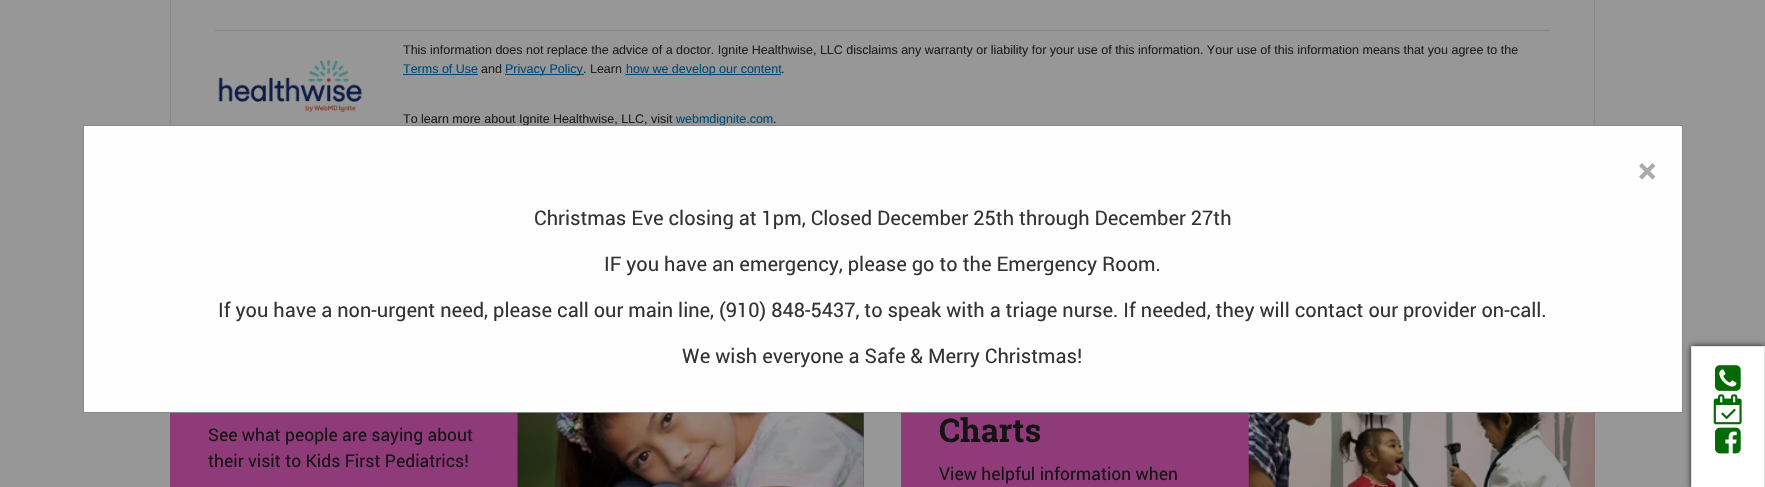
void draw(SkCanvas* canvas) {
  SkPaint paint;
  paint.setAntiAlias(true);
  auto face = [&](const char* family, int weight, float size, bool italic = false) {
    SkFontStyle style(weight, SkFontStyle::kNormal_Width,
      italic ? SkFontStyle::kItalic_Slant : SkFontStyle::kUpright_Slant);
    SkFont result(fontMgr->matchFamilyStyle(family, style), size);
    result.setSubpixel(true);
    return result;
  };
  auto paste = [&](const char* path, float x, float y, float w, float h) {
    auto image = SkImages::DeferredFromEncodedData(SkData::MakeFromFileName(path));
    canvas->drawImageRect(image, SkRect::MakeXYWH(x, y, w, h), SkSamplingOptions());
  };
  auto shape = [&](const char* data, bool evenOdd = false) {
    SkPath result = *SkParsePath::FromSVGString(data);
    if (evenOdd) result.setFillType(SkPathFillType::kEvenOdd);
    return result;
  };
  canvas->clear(0xff979797);
  paint.setColor(0xff8b8a8a);
  canvas->drawPath(shape("M170-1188H1595V274C1595 279 1591 284 1585 284H180C174 284 170 279 170 274ZM171-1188H1594V274C1594 279 1590 282 1585 282H180C175 282 171 279 171 274Z", true), paint);
  paste("img/1.png", 218, 60, 144, 52);
  {
    const struct { float x, y, w, h; SkColor color; } items[] = {
      {215, 30, 1335, 1, 0xff85868a},
      {403, 74, 75, 1, 0xff004b75},
      {505, 74, 79, 1, 0xff004b75},
      {625, 74, 156, 1, 0xff004b75},
      {170, 413, 694, 74, 0xff8f3b79},
    };
    for (auto [x, y, w, h, color] : items) {
      paint.setColor(color);
      canvas->drawRect(SkRect::MakeXYWH(x, y, w, h), paint);
    }
  }
  paste("img/2.png", 517, 413, 347, 74);
  canvas->drawRect(SkRect::MakeXYWH(901, 413, 348, 74), paint);
  paste("img/3.png", 1248, 413, 347, 74);
  auto f0 = face("Liberation Sans", 400, 12.5f);
  paint.setColor(0xff1f1f1f);
  canvas->drawString("This information does not replace the advice of a doctor. Ignite Healthwise, LLC disclaims any warranty or liability for your use of this information. Your use of this information means that you agree to the", 403, 54, f0, paint);
  paint.setColor(0xff004b75);
  canvas->drawString("Terms of Use", 403, 73, f0, paint);
  paint.setColor(0xff1f1f1f);
  canvas->drawString("and", 481, 73, f0, paint);
  paint.setColor(0xff004b75);
  canvas->drawString("Privacy Policy", 505, 73, f0, paint);
  paint.setColor(0xff1f1f1f);
  canvas->drawString(". Learn", 583, 73, f0, paint);
  paint.setColor(0xff004b75);
  canvas->drawString("how we develop our content", 626, 73, f0, paint);
  paint.setColor(0xff1f1f1f);
  canvas->drawString(".", 781, 73, f0, paint);
  canvas->drawString("To learn more about Ignite Healthwise, LLC, visit", 403, 123, f0, paint);
  paint.setColor(0xff004b75);
  canvas->drawString("webmdignite.com", 676, 123, f0, paint);
  paint.setColor(0xff1f1f1f);
  canvas->drawString(".", 773, 123, f0, paint);
  paint.setColor(0xfffefefe);
  canvas->drawRect(SkRect::MakeXYWH(83.5f, 125.5f, 1599, 287), paint);
  paint.setStroke(true);
  paint.setStrokeWidth(1);
  paint.setColor(0xff888888);
  canvas->drawRect(SkRect::MakeXYWH(83.5f, 125.5f, 1599, 287), paint);
  auto f1 = face("Roboto", 700, 35);
  paint.setStroke(false);
  paint.setColor(0xffaaaaaa);
  canvas->drawString("×", 1638, 183, f1, paint);
  auto f2 = face("Roboto", 400, 20);
  paint.setColor(0xff333333);
  {
    const struct { const char* s; float x, y; } items[] = {
      {"Christmas Eve closing at 1pm, Closed December 25th through December 27th", 534, 225},
      {"IF you have an emergency, please go to the Emergency Room.", 604, 271},
      {"If you have a non-urgent need, please call our main line, (910) 848-5437, to speak with a triage nurse. If needed, they will contact our provider on-call.", 218, 317},
      {"We wish everyone a Safe & Merry Christmas!", 682, 363},
    };
    for (auto [s, x, y] : items) {
      canvas->drawString(s, x, y, f2, paint);
    }
  }
  auto f3 = face("Roboto", 400, 17.5f);
  paint.setColor(0xff141414);
  canvas->drawString("See what people are saying about", 208, 441, f3, paint);
  canvas->drawString("their visit to Kids First Pediatrics!", 208, 467, f3, paint);
  auto f4 = face("Roboto Slab", 700, 32.5f);
  canvas->drawString("Charts", 939, 442, f4, paint);
  canvas->drawString("View helpful information when", 939, 480, f3, paint);
  paint.setColor(0xbf000000);
  paint.setMaskFilter(SkMaskFilter::MakeBlur(kNormal_SkBlurStyle, 3));
  canvas->drawRect(SkRect::MakeXYWH(1691, 346, 74, 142), paint);
  paint.setMaskFilter(nullptr);
  paint.setColor(0xffffffff);
  canvas->drawRect(SkRect::MakeXYWH(1691.5f, 346.5f, 73, 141), paint);
  paint.setStroke(true);
  paint.setColor(0xffe3e3e3);
  canvas->drawRect(SkRect::MakeXYWH(1691.5f, 346.5f, 73, 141), paint);
  paste("img/4.png", 1715, 365, 26, 26);
  paste("img/5.png", 1713, 394, 29, 31);
  paste("img/6.png", 1715, 427, 26, 27);
}
